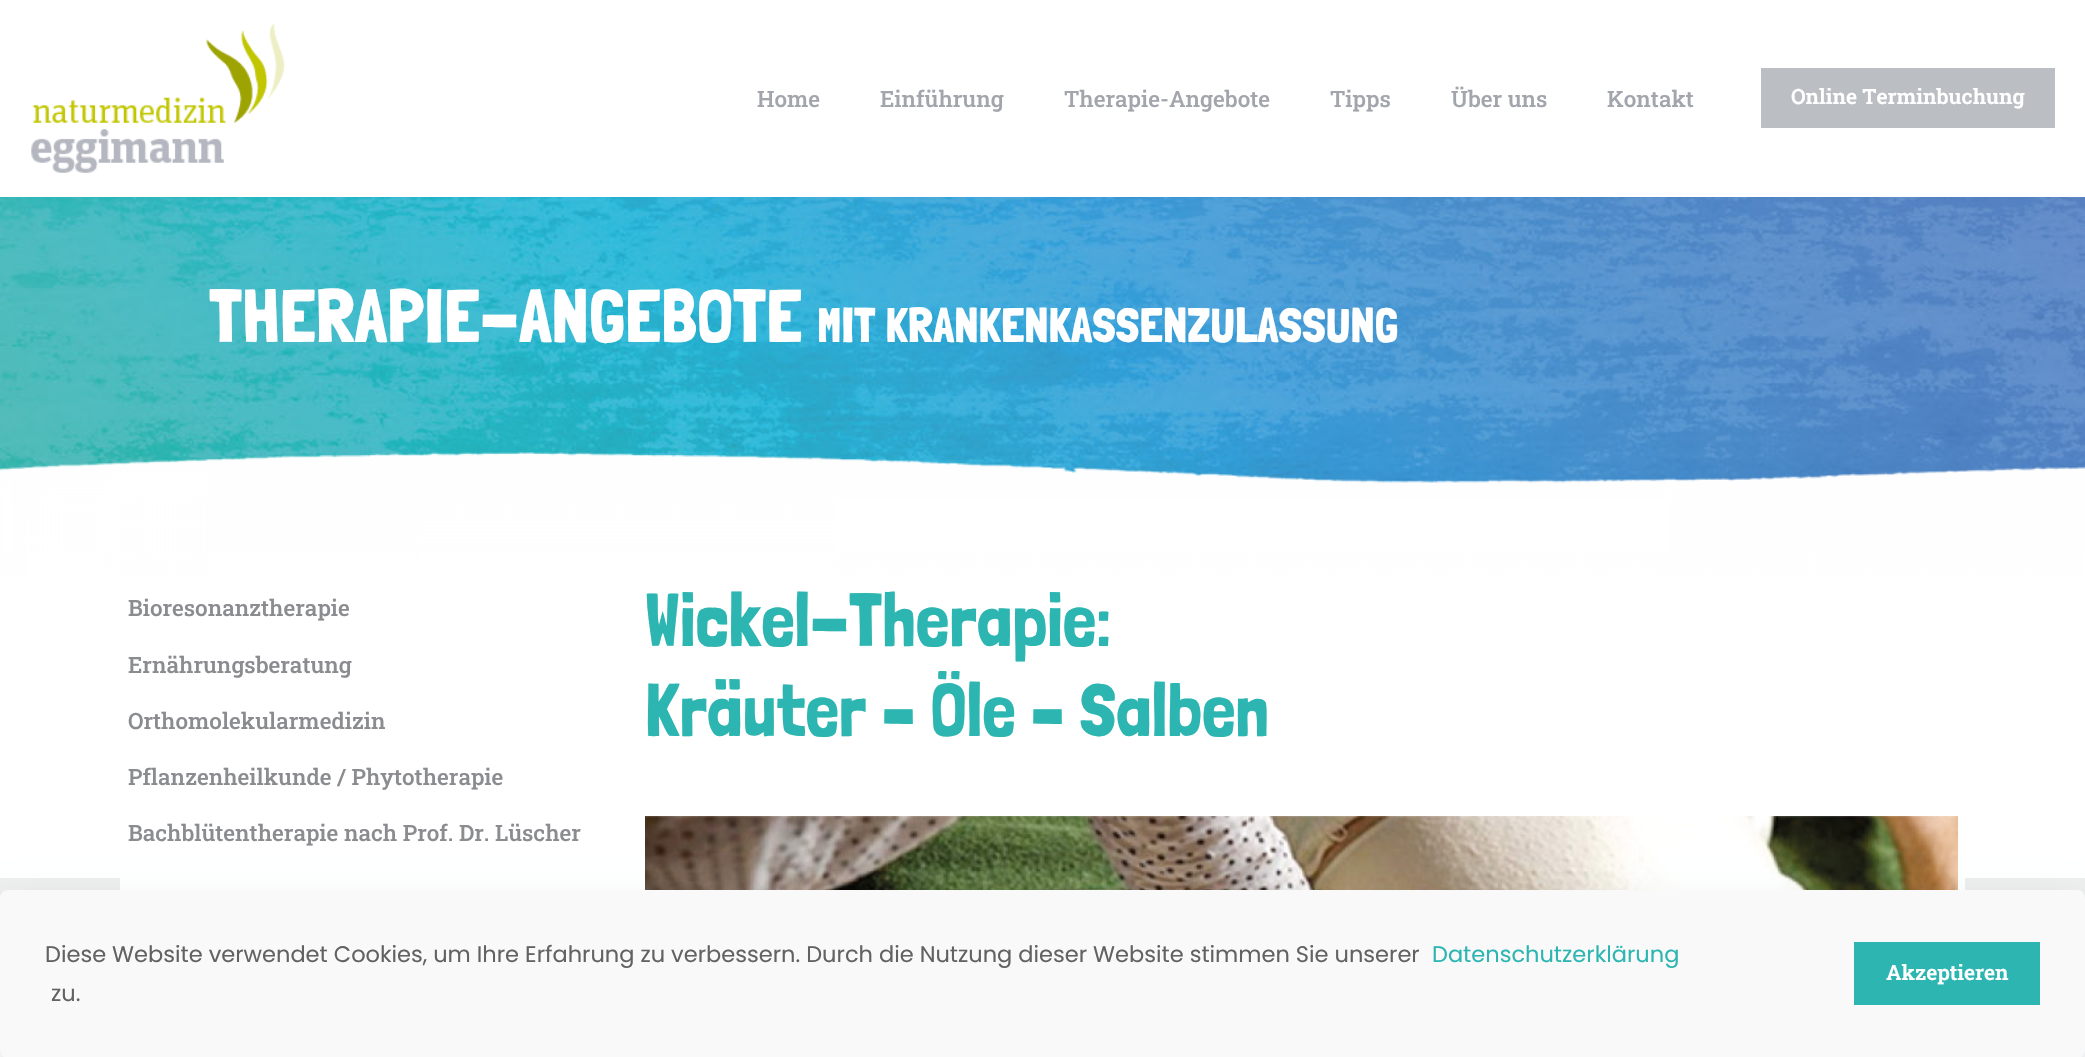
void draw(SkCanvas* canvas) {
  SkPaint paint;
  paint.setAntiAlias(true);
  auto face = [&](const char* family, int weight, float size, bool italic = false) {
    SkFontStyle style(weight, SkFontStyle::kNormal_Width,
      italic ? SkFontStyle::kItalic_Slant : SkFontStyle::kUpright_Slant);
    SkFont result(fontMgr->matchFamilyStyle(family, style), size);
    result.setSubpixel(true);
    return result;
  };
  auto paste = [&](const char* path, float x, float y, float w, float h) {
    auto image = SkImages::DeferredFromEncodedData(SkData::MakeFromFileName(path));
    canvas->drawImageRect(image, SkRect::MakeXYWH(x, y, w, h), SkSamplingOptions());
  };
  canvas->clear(0xffffffff);
  paste("img/1.png", 31, 24, 254, 149);
  paint.setColor(0xffbbbfc3);
  canvas->drawRect(SkRect::MakeXYWH(1761, 68, 294, 60), paint);
  paste("img/2.png", 0, 197, 2085, 297);
  paste("img/3.png", 0, 452, 2085, 124);
  paste("img/4.png", 645, 816, 1313, 74);
  paint.setColor(0xffeeeeee);
  canvas->drawRect(SkRect::MakeXYWH(0, 878, 120, 20), paint);
  canvas->drawRect(SkRect::MakeXYWH(1965, 878, 120, 20), paint);
  paint.setColor(0x21010727);
  paint.setMaskFilter(SkMaskFilter::MakeBlur(kNormal_SkBlurStyle, 22.5f));
  canvas->drawRoundRect(SkRect::MakeXYWH(0, 912, 2085, 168), 8, 8, paint);
  paint.setMaskFilter(nullptr);
  paint.setColor(0xfff9f9f9);
  canvas->drawRoundRect(SkRect::MakeXYWH(0, 890, 2085, 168), 8, 8, paint);
  paint.setColor(0xff2db6b1);
  canvas->drawRect(SkRect::MakeXYWH(1854, 942, 186, 63), paint);
  auto f0 = face("Roboto Slab", 500, 22.5f);
  paint.setColor(0xffa3a5ad);
  {
    const struct { const char* s; float x, y; } items[] = {
      {"Home", 757, 107},
      {"Einführung", 880, 107},
      {"Therapie-Angebote", 1064, 107},
      {"Tipps", 1330, 107},
      {"Über uns", 1451, 107},
      {"Kontakt", 1607, 107},
    };
    for (auto [s, x, y] : items) {
      canvas->drawString(s, x, y, f0, paint);
    }
  }
  auto f1 = face("Roboto Slab", 600, 21);
  paint.setColor(0xffffffff);
  canvas->drawString("Online Terminbuchung", 1791, 104, f1, paint);
  auto f2 = face("Londrina Solid", 400, 75);
  canvas->drawString("THERAPIE-ANGEBOTE", 209, 342, f2, paint);
  auto f3 = face("Londrina Solid", 400, 48.75f);
  canvas->drawString("MIT KRANKENKASSENZULASSUNG", 817, 342, f3, paint);
  paint.setColor(0xff8b8c90);
  {
    const struct { const char* s; float x, y; } items[] = {
      {"Bioresonanztherapie", 128, 616},
      {"Ernährungsberatung", 128, 673},
      {"Orthomolekularmedizin", 128, 729},
      {"Pflanzenheilkunde / Phytotherapie", 128, 785},
      {"Bachblütentherapie nach Prof. Dr. Lüscher", 128, 841},
    };
    for (auto [s, x, y] : items) {
      canvas->drawString(s, x, y, f0, paint);
    }
  }
  paint.setColor(0xff2db6b1);
  canvas->drawString("Wickel-Therapie:", 645, 646, f2, paint);
  canvas->drawString("Kräuter – Öle – Salben", 645, 736, f2, paint);
  auto f4 = face("Poppins", 400, 22.5f);
  paint.setColor(0xff626262);
  canvas->drawString("Diese Website verwendet Cookies, um Ihre Erfahrung zu verbessern. Durch die Nutzung dieser Website stimmen Sie unserer", 45, 962, f4, paint);
  paint.setColor(0xff2db6b1);
  canvas->drawString("Datenschutzerklärung", 1432, 962, f4, paint);
  paint.setColor(0xff626262);
  canvas->drawString("zu.", 51, 1001, f4, paint);
  paint.setColor(0xffffffff);
  canvas->drawString("Akzeptieren", 1886, 980, f1, paint);
}
